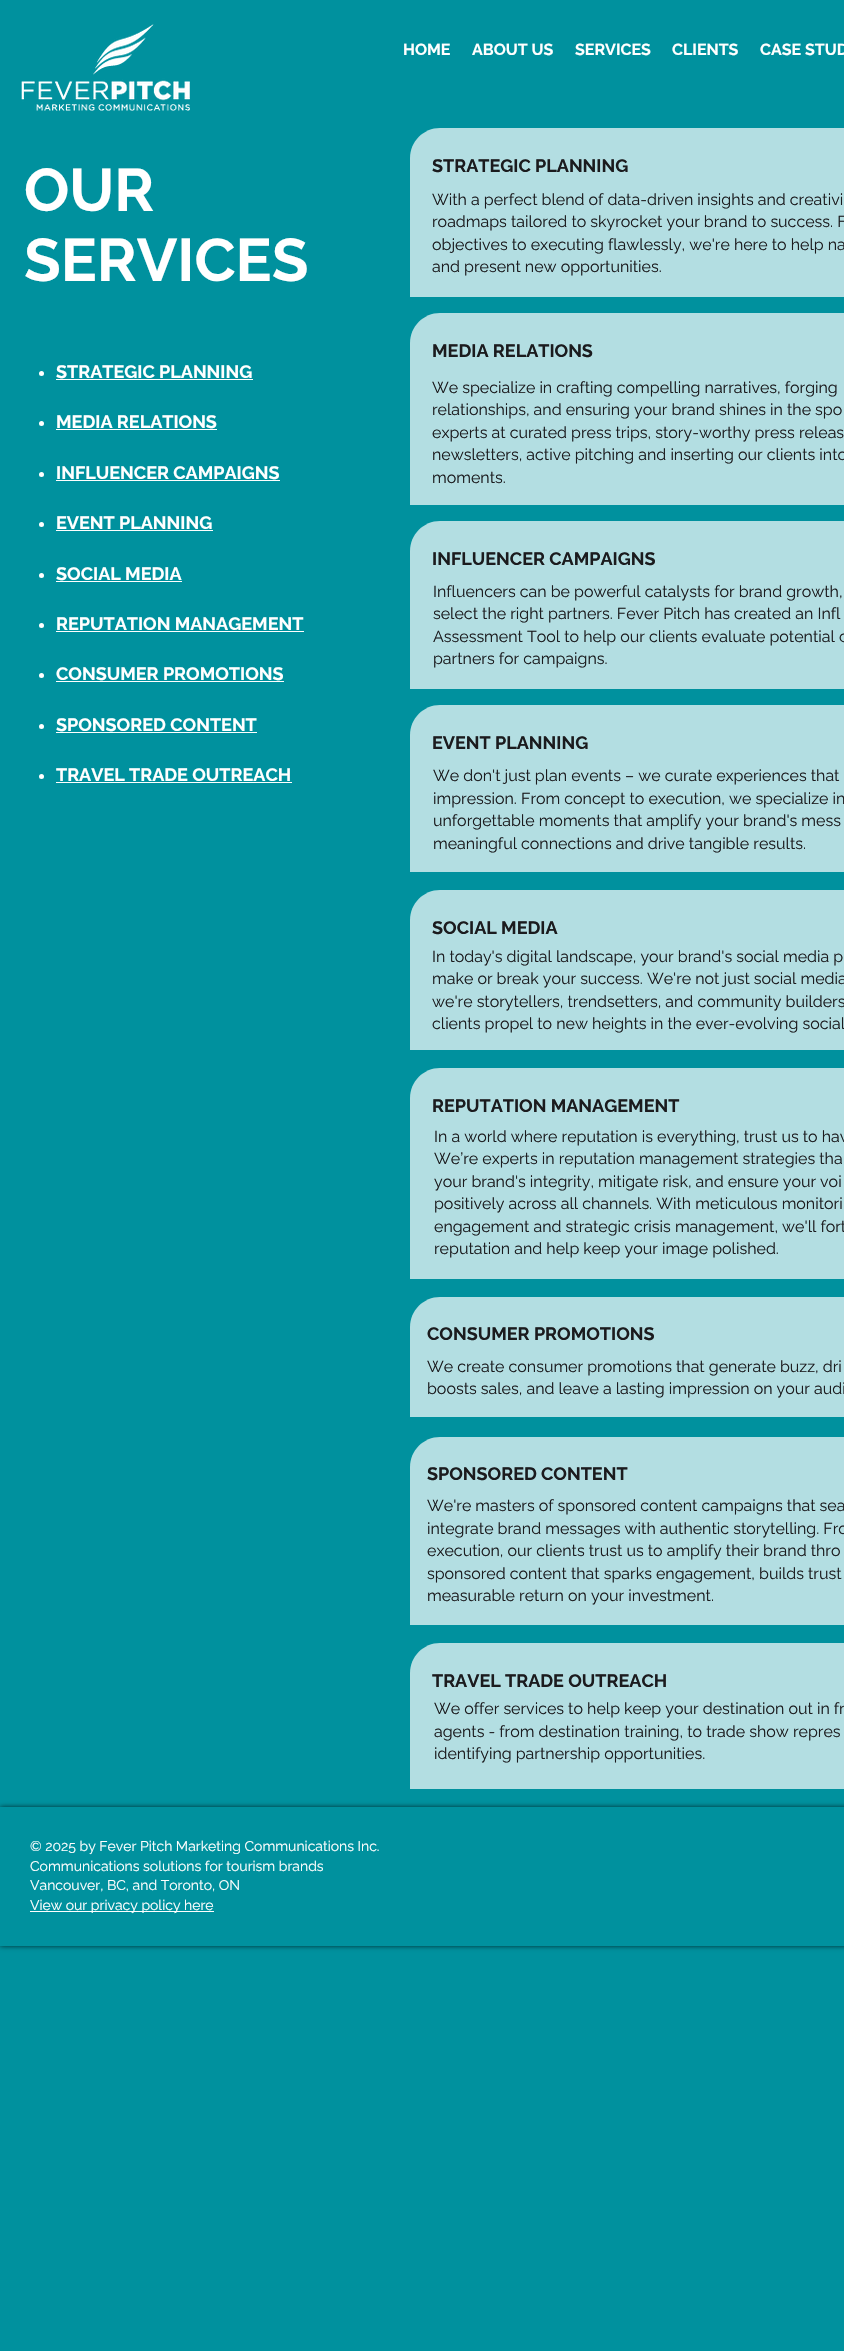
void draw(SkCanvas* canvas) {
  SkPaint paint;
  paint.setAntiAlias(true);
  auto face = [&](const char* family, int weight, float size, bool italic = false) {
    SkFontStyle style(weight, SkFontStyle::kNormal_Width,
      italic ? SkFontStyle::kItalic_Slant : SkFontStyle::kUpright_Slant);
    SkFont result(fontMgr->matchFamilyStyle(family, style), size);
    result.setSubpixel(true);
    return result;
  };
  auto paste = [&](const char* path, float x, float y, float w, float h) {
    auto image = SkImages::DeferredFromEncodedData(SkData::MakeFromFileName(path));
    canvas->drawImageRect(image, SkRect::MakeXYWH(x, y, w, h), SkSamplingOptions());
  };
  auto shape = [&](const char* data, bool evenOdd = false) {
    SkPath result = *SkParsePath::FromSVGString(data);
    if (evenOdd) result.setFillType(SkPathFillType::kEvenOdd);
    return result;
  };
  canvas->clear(0xff00919e);
  paste("img/1.png", 21, 24, 169, 87);
  paint.setColor(0xffb3dee2);
  canvas->drawPath(shape("M440 128H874V277C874 288 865 297 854 297H410V158C410 141.5 423.5 128 440 128Z"), paint);
  paint.setColor(0xffffffff);
  canvas->drawCircle(41.5f, 373.5f, 2.5f, paint);
  canvas->drawRect(SkRect::MakeXYWH(56, 379, 197, 1), paint);
  canvas->drawCircle(41.5f, 423.5f, 2.5f, paint);
  canvas->drawRect(SkRect::MakeXYWH(56, 429, 161, 1), paint);
  canvas->drawCircle(41.5f, 474.5f, 2.5f, paint);
  canvas->drawRect(SkRect::MakeXYWH(56, 480, 224, 1), paint);
  canvas->drawCircle(41.5f, 524.5f, 2.5f, paint);
  canvas->drawRect(SkRect::MakeXYWH(56, 530, 157, 1), paint);
  canvas->drawCircle(41.5f, 575.5f, 2.5f, paint);
  canvas->drawRect(SkRect::MakeXYWH(56, 581, 126, 1), paint);
  canvas->drawCircle(41.5f, 625.5f, 2.5f, paint);
  canvas->drawRect(SkRect::MakeXYWH(56, 631, 248, 1), paint);
  canvas->drawCircle(41.5f, 675.5f, 2.5f, paint);
  canvas->drawRect(SkRect::MakeXYWH(56, 681, 228, 1), paint);
  canvas->drawCircle(41.5f, 726.5f, 2.5f, paint);
  canvas->drawRect(SkRect::MakeXYWH(56, 732, 201, 1), paint);
  canvas->drawCircle(41.5f, 776.5f, 2.5f, paint);
  canvas->drawRect(SkRect::MakeXYWH(56, 782, 236, 1), paint);
  paint.setColor(0xffb3dee2);
  canvas->drawPath(shape("M440 313H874V485C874 496 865 505 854 505H410V343C410 326.5 423.5 313 440 313Z"), paint);
  canvas->drawPath(shape("M440 521H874V669C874 680 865 689 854 689H410V551C410 534.5 423.5 521 440 521Z"), paint);
  canvas->drawPath(shape("M440 705H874V852C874 863 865 872 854 872H410V735C410 718.5 423.5 705 440 705Z"), paint);
  canvas->drawPath(shape("M440 890H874V1030C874 1041 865 1050 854 1050H410V920C410 903.5 423.5 890 440 890Z"), paint);
  canvas->drawPath(shape("M440 1068H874V1259C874 1270 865 1279 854 1279H410V1098C410 1081.5 423.5 1068 440 1068Z"), paint);
  canvas->drawPath(shape("M440 1297H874V1397C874 1408 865 1417 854 1417H410V1327C410 1310.5 423.5 1297 440 1297Z"), paint);
  canvas->drawPath(shape("M440 1437H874V1605C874 1616 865 1625 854 1625H410V1467C410 1450.5 423.5 1437 440 1437Z"), paint);
  canvas->drawPath(shape("M440 1643H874V1769C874 1780 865 1789 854 1789H410V1673C410 1656.5 423.5 1643 440 1643Z"), paint);
  canvas->save();
  canvas->clipPath(shape("M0 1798H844V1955H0ZM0 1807H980V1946H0Z", true), true);
  paint.setColor(0xb3000000);
  paint.setMaskFilter(SkMaskFilter::MakeBlur(kNormal_SkBlurStyle, 2.5f));
  canvas->drawRect(SkRect::MakeXYWH(0, 1807, 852, 139), paint);
  paint.setMaskFilter(nullptr);
  canvas->restore();
  paint.setColor(0xffffffff);
  canvas->drawRect(SkRect::MakeXYWH(30, 1911, 184, 1), paint);
  auto f0 = face("Raleway", 700, 16);
  {
    const struct { const char* s; float x, y; } items[] = {
      {"HOME", 403, 55},
      {"ABOUT US", 472, 55},
      {"SERVICES", 575, 55},
      {"CLIENTS", 672, 55},
      {"CASE STUD", 760, 55},
    };
    for (auto [s, x, y] : items) {
      canvas->drawString(s, x, y, f0, paint);
    }
  }
  auto f1 = face("Raleway", 700, 60);
  canvas->drawString("OUR", 24, 211, f1, paint);
  canvas->drawString("SERVICES", 24, 281, f1, paint);
  auto f2 = face("Raleway", 700, 18);
  paint.setColor(0xff1b1b1e);
  canvas->drawString("STRATEGIC PLANNING", 432, 172, f2, paint);
  auto f3 = face("Raleway", 400, 16);
  {
    const struct { const char* s; float x, y; } items[] = {
      {"With a perfect blend of data-driven insights and creativi", 432, 205},
      {"roadmaps tailored to skyrocket your brand to success. F", 432, 227},
      {"objectives to executing flawlessly, we're here to help na", 432, 250},
      {"and present new opportunities.", 432, 272},
    };
    for (auto [s, x, y] : items) {
      canvas->drawString(s, x, y, f3, paint);
    }
  }
  paint.setColor(0xffffffff);
  {
    const struct { const char* s; float x, y; } items[] = {
      {"STRATEGIC PLANNING", 56, 378},
      {"MEDIA RELATIONS", 56, 428},
      {"INFLUENCER CAMPAIGNS", 56, 479},
      {"EVENT PLANNING", 56, 529},
      {"SOCIAL MEDIA", 56, 580},
      {"REPUTATION MANAGEMENT", 56, 630},
      {"CONSUMER PROMOTIONS", 56, 680},
      {"SPONSORED CONTENT", 56, 731},
      {"TRAVEL TRADE OUTREACH", 56, 781},
    };
    for (auto [s, x, y] : items) {
      canvas->drawString(s, x, y, f2, paint);
    }
  }
  paint.setColor(0xff1b1b1e);
  canvas->drawString("MEDIA RELATIONS", 432, 357, f2, paint);
  {
    const struct { const char* s; float x, y; } items[] = {
      {"We specialize in crafting compelling narratives, forging", 432, 393},
      {"relationships, and ensuring your brand shines in the spo", 432, 415},
      {"experts at curated press trips, story-worthy press releas", 432, 438},
      {"newsletters, active pitching and inserting our clients into", 432, 460},
      {"moments.", 432, 483},
    };
    for (auto [s, x, y] : items) {
      canvas->drawString(s, x, y, f3, paint);
    }
  }
  canvas->drawString("INFLUENCER CAMPAIGNS", 432, 565, f2, paint);
  {
    const struct { const char* s; float x, y; } items[] = {
      {"Influencers can be powerful catalysts for brand growth,", 433, 597},
      {"select the right partners. Fever Pitch has created an Infl", 433, 619},
      {"Assessment Tool to help our clients evaluate potential c", 433, 642},
      {"partners for campaigns.", 433, 664},
    };
    for (auto [s, x, y] : items) {
      canvas->drawString(s, x, y, f3, paint);
    }
  }
  canvas->drawString("EVENT PLANNING", 432, 749, f2, paint);
  {
    const struct { const char* s; float x, y; } items[] = {
      {"We don't just plan events – we curate experiences that", 433, 781},
      {"impression. From concept to execution, we specialize in", 433, 804},
      {"unforgettable moments that amplify your brand's mess", 433, 826},
      {"meaningful connections and drive tangible results.", 433, 849},
    };
    for (auto [s, x, y] : items) {
      canvas->drawString(s, x, y, f3, paint);
    }
  }
  canvas->drawString("SOCIAL MEDIA", 432, 934, f2, paint);
  {
    const struct { const char* s; float x, y; } items[] = {
      {"In today's digital landscape, your brand's social media p", 432, 962},
      {"make or break your success. We're not just social media", 432, 984},
      {"we're storytellers, trendsetters, and community builders", 432, 1007},
      {"clients propel to new heights in the ever-evolving social", 432, 1029},
    };
    for (auto [s, x, y] : items) {
      canvas->drawString(s, x, y, f3, paint);
    }
  }
  canvas->drawString("REPUTATION MANAGEMENT", 432, 1112, f2, paint);
  {
    const struct { const char* s; float x, y; } items[] = {
      {"In a world where reputation is everything, trust us to hav", 434, 1142},
      {"We’re experts in reputation management strategies tha", 434, 1164},
      {"your brand's integrity, mitigate risk, and ensure your voi", 434, 1187},
      {"positively across all channels. With meticulous monitori", 434, 1209},
      {"engagement and strategic crisis management, we'll fort", 434, 1232},
      {"reputation and help keep your image polished.", 434, 1254},
    };
    for (auto [s, x, y] : items) {
      canvas->drawString(s, x, y, f3, paint);
    }
  }
  canvas->drawString("CONSUMER PROMOTIONS", 427, 1340, f2, paint);
  canvas->drawString("We create consumer promotions that generate buzz, dri", 427, 1372, f3, paint);
  canvas->drawString("boosts sales, and leave a lasting impression on your audi", 427, 1394, f3, paint);
  canvas->drawString("SPONSORED", 427, 1480, f2, paint);
  canvas->drawString("CONTENT", 541, 1480, f2, paint);
  {
    const struct { const char* s; float x, y; } items[] = {
      {"We're masters of sponsored content campaigns that sea", 427, 1511},
      {"integrate brand messages with authentic storytelling. Fro", 427, 1534},
      {"execution, our clients trust us to amplify their brand thro", 427, 1556},
      {"sponsored content that sparks engagement, builds trust", 427, 1579},
      {"measurable return on your investment.", 427, 1601},
    };
    for (auto [s, x, y] : items) {
      canvas->drawString(s, x, y, f3, paint);
    }
  }
  canvas->drawString("TRAVEL TRADE OUTREACH", 432, 1687, f2, paint);
  {
    const struct { const char* s; float x, y; } items[] = {
      {"We offer services to help keep your destination out in fr", 434, 1714},
      {"agents - from destination training, to trade show repres", 434, 1737},
      {"identifying partnership opportunities.", 434, 1759},
    };
    for (auto [s, x, y] : items) {
      canvas->drawString(s, x, y, f3, paint);
    }
  }
  auto f4 = face("Raleway", 400, 14);
  paint.setColor(0xffffffff);
  {
    const struct { const char* s; float x, y; } items[] = {
      {"© 2025 by Fever Pitch Marketing Communications Inc.", 30, 1851},
      {"Communications solutions for tourism brands", 30, 1871},
      {"Vancouver, BC, and Toronto, ON", 30, 1890},
      {"View our privacy policy here", 30, 1910},
    };
    for (auto [s, x, y] : items) {
      canvas->drawString(s, x, y, f4, paint);
    }
  }
}
